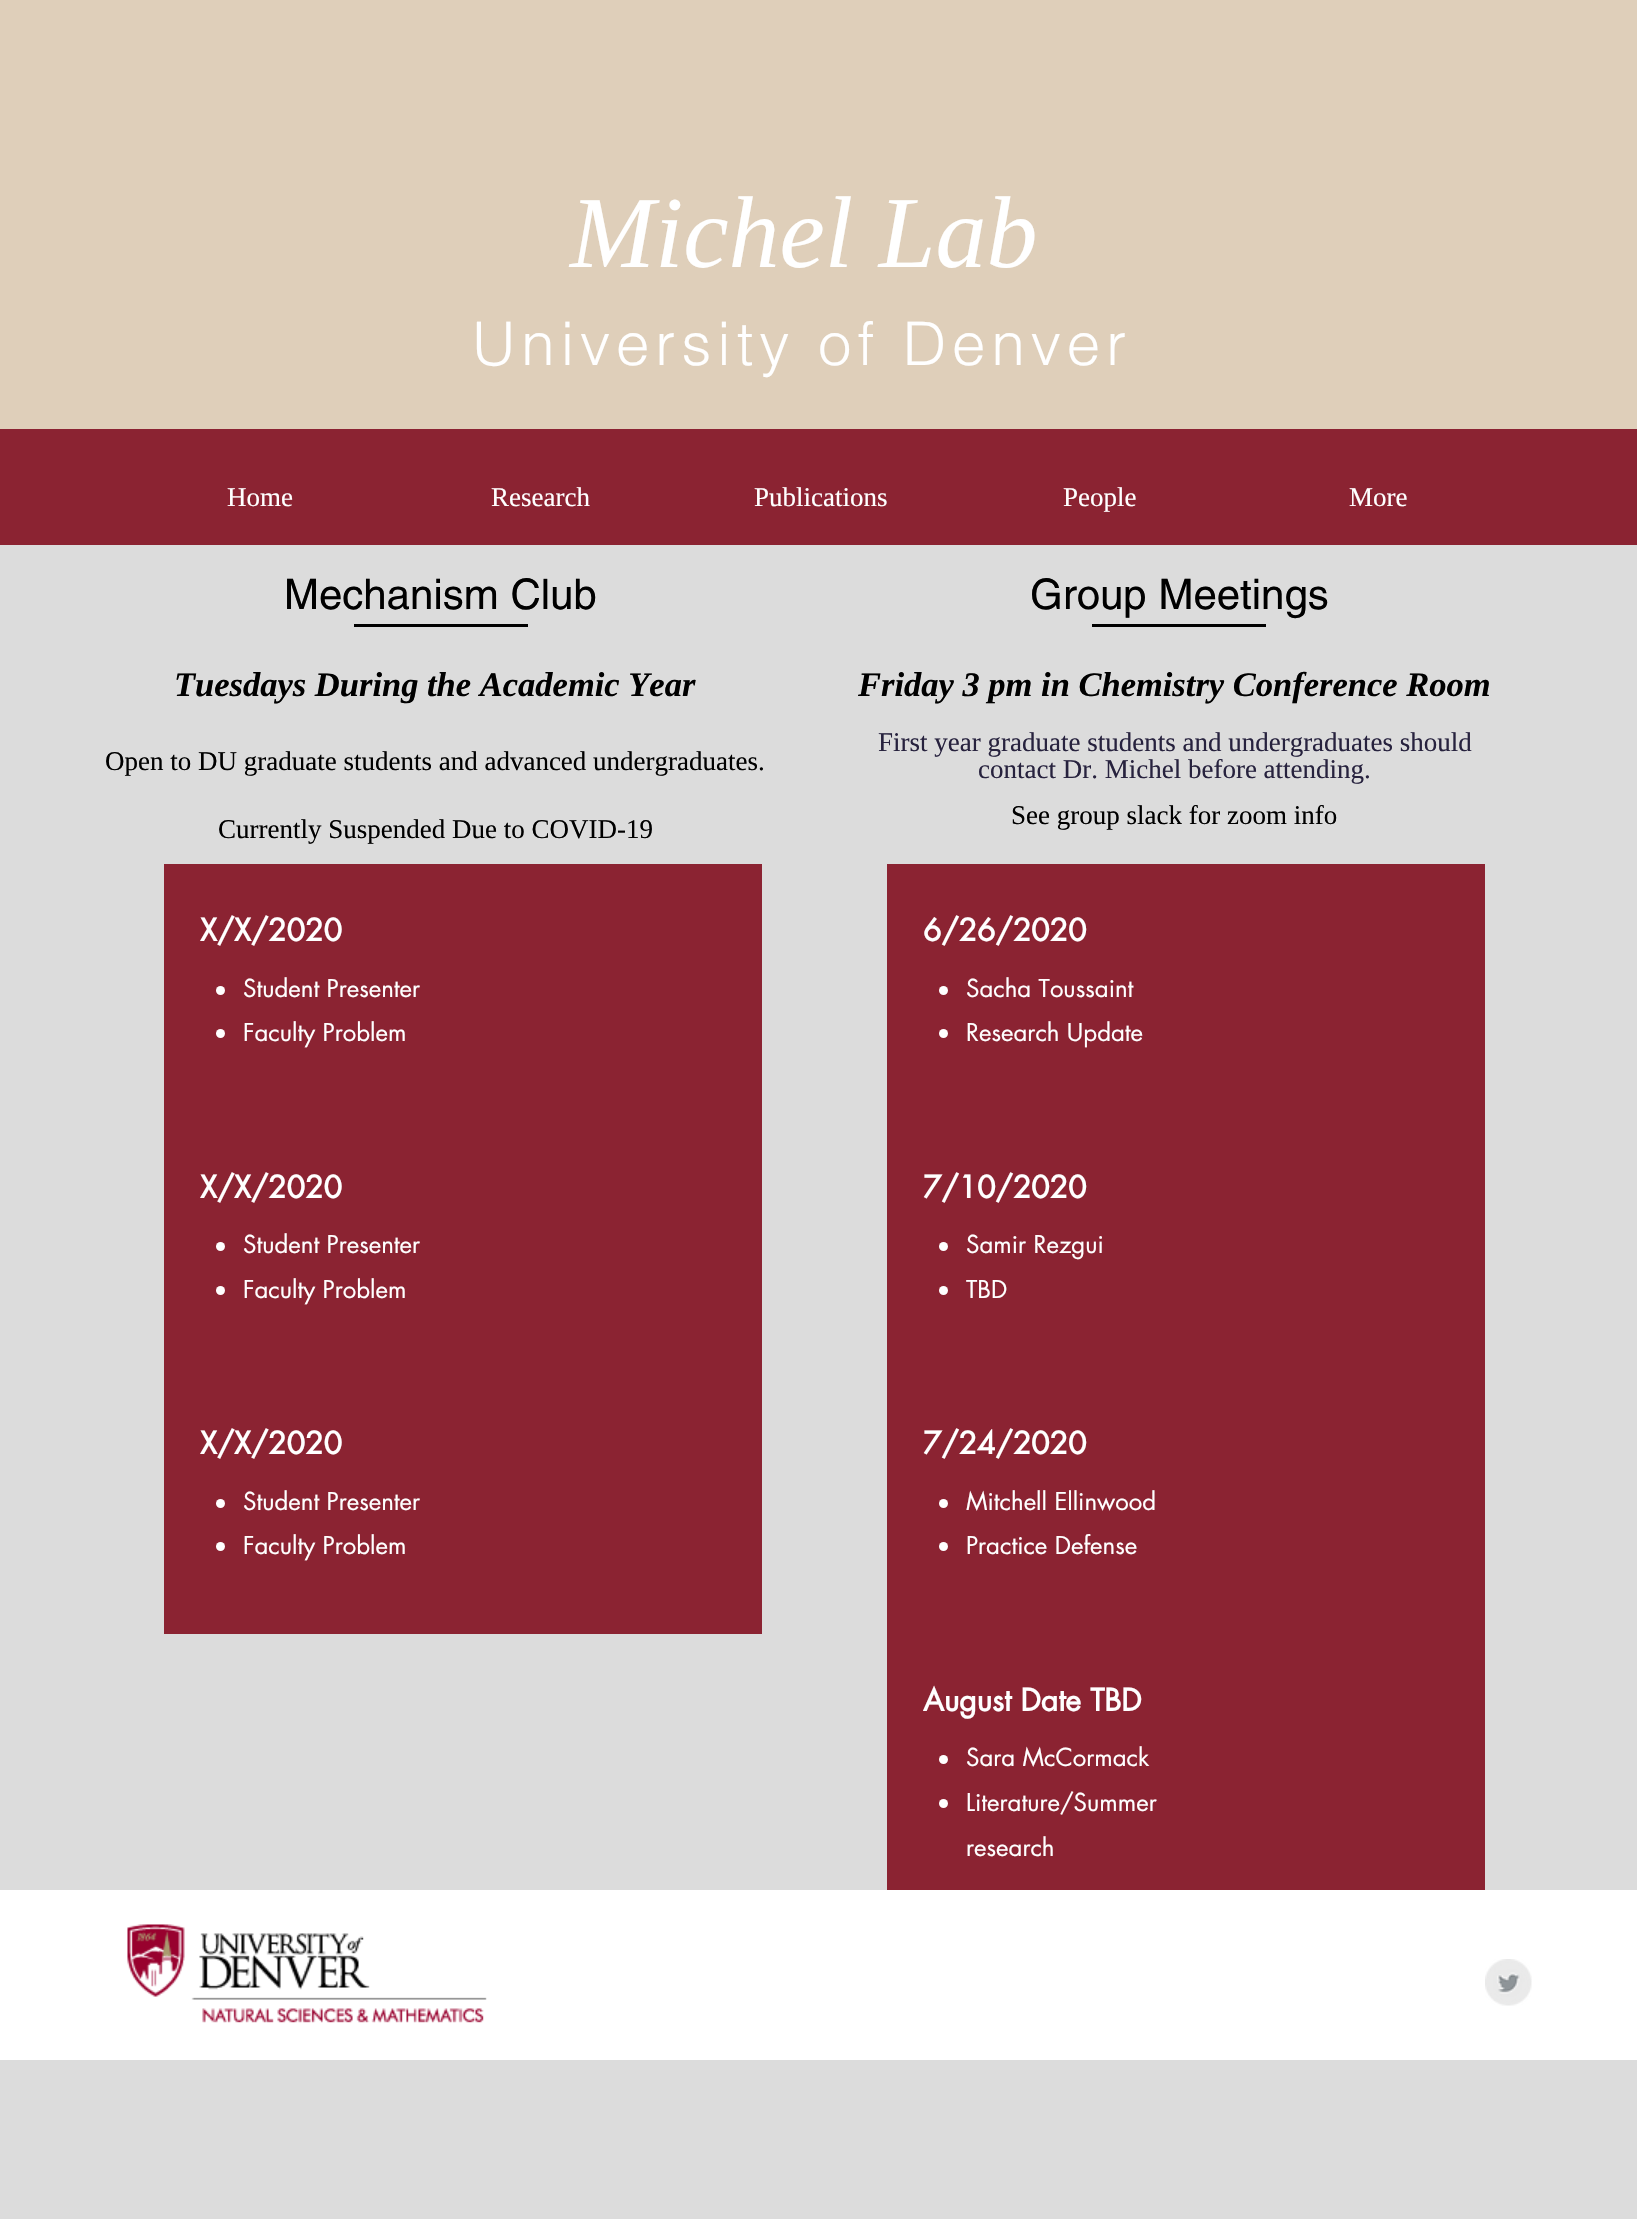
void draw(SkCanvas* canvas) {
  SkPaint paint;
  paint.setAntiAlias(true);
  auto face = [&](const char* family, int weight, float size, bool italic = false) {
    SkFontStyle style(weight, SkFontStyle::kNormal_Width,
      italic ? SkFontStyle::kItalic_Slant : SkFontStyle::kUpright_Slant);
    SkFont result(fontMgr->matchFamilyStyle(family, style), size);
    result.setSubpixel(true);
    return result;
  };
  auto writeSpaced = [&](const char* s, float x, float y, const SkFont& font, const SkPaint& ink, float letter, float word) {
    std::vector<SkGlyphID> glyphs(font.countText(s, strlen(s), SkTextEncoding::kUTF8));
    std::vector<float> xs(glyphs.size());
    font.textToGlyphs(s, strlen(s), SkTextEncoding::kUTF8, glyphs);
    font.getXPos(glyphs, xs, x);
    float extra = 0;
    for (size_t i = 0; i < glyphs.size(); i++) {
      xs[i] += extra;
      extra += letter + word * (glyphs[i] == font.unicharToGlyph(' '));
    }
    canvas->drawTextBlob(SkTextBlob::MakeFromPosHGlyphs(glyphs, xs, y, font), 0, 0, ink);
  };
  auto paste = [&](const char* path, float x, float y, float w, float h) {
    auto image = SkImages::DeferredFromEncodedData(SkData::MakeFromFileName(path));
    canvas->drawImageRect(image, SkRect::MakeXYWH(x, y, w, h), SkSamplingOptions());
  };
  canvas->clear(0xffdcdcdc);
  {
    const struct { float x, y, w, h; SkColor color; } items[] = {
      {0, 0, 1637, 429, 0xffdfcfba},
      {0, 429, 1637, 116, 0xff8b2332},
      {354, 624, 174, 3, 0xff000000},
      {1092, 624, 174, 3, 0xff000000},
      {164, 864, 598, 770, 0xff8b2332},
    };
    for (auto [x, y, w, h, color] : items) {
      paint.setColor(color);
      canvas->drawRect(SkRect::MakeXYWH(x, y, w, h), paint);
    }
  }
  paint.setColor(0xffffffff);
  canvas->drawCircle(220.5f, 990.5f, 4.5f, paint);
  canvas->drawCircle(220.5f, 1033.5f, 4.5f, paint);
  canvas->drawCircle(220.5f, 1246.5f, 4.5f, paint);
  canvas->drawCircle(220.5f, 1290.5f, 4.5f, paint);
  canvas->drawCircle(220.5f, 1503.5f, 4.5f, paint);
  canvas->drawCircle(220.5f, 1546.5f, 4.5f, paint);
  paint.setColor(0xff8b2332);
  canvas->drawRect(SkRect::MakeXYWH(887, 864, 598, 1026), paint);
  paint.setColor(0xffffffff);
  canvas->drawCircle(943.5f, 990.5f, 4.5f, paint);
  canvas->drawCircle(943.5f, 1033.5f, 4.5f, paint);
  canvas->drawCircle(943.5f, 1246.5f, 4.5f, paint);
  canvas->drawCircle(943.5f, 1290.5f, 4.5f, paint);
  canvas->drawCircle(943.5f, 1503.5f, 4.5f, paint);
  canvas->drawCircle(943.5f, 1546.5f, 4.5f, paint);
  canvas->drawCircle(943.5f, 1759.5f, 4.5f, paint);
  canvas->drawCircle(943.5f, 1803.5f, 4.5f, paint);
  canvas->drawRect(SkRect::MakeXYWH(0, 1890, 1637, 170), paint);
  paste("img/1.png", 127, 1924, 360, 99);
  paste("img/2.png", 1485, 1959, 47, 47);
  auto f0 = face("Liberation Serif", 400, 102, true);
  canvas->drawString("Michel Lab", 570, 267, f0, paint);
  auto f1 = face("helvetica", 300, 60);
  writeSpaced("University of Denver", 472, 365, f1, paint, 6, 0);
  auto f2 = face("Liberation Serif", 400, 27);
  {
    const struct { const char* s; float x, y; } items[] = {
      {"Home", 227, 506},
      {"Research", 491, 506},
      {"Publications", 754, 506},
      {"People", 1063, 506},
      {"More", 1349, 506},
    };
    for (auto [s, x, y] : items) {
      canvas->drawString(s, x, y, f2, paint);
    }
  }
  auto f3 = face("helvetica", 400, 42);
  paint.setColor(0xff000000);
  canvas->drawString("Mechanism Club", 284, 609, f3, paint);
  canvas->drawString("Group Meetings", 1030, 609, f3, paint);
  auto f4 = face("Liberation Serif", 700, 34.5f, true);
  canvas->drawString("Tuesdays During the Academic Year", 174, 696, f4, paint);
  canvas->drawString("Open to DU graduate students and advanced undergraduates.", 105, 770, f2, paint);
  canvas->drawString("Currently Suspended Due to COVID-19", 218, 838, f2, paint);
  canvas->drawString("Friday 3 pm in Chemistry Conference Room", 858, 696, f4, paint);
  paint.setColor(0xff27223e);
  canvas->drawString("First year graduate students and undergraduates should", 878, 751, f2, paint);
  canvas->drawString("contact Dr. Michel before attending.", 978, 778, f2, paint);
  paint.setColor(0xff000000);
  canvas->drawString("See group slack for zoom info", 1011, 824, f2, paint);
  auto f5 = face("futura", 700, 30);
  paint.setColor(0xffffffff);
  canvas->drawString("X/X/2020", 200, 941, f5, paint);
  auto f6 = face("futura", 400, 24);
  canvas->drawString("Student Presenter", 243, 997, f6, paint);
  canvas->drawString("Faculty Problem", 243, 1041, f6, paint);
  canvas->drawString("X/X/2020", 200, 1198, f5, paint);
  canvas->drawString("Student Presenter", 243, 1253, f6, paint);
  canvas->drawString("Faculty Problem", 243, 1298, f6, paint);
  canvas->drawString("X/X/2020", 200, 1454, f5, paint);
  canvas->drawString("Student Presenter", 243, 1510, f6, paint);
  canvas->drawString("Faculty Problem", 243, 1554, f6, paint);
  canvas->drawString("6/26/2020", 923, 941, f5, paint);
  canvas->drawString("Sacha Toussaint", 966, 997, f6, paint);
  canvas->drawString("Research Update", 966, 1041, f6, paint);
  canvas->drawString("7/10/2020", 923, 1198, f5, paint);
  canvas->drawString("Samir Rezgui", 966, 1253, f6, paint);
  canvas->drawString("TBD", 966, 1298, f6, paint);
  canvas->drawString("7/24/2020", 923, 1454, f5, paint);
  canvas->drawString("Mitchell Ellinwood", 966, 1510, f6, paint);
  canvas->drawString("Practice Defense", 966, 1554, f6, paint);
  canvas->drawString("August Date TBD", 923, 1711, f5, paint);
  {
    const struct { const char* s; float x, y; } items[] = {
      {"Sara McCormack", 966, 1766},
      {"Literature/Summer", 966, 1811},
      {"research", 966, 1856},
    };
    for (auto [s, x, y] : items) {
      canvas->drawString(s, x, y, f6, paint);
    }
  }
}
